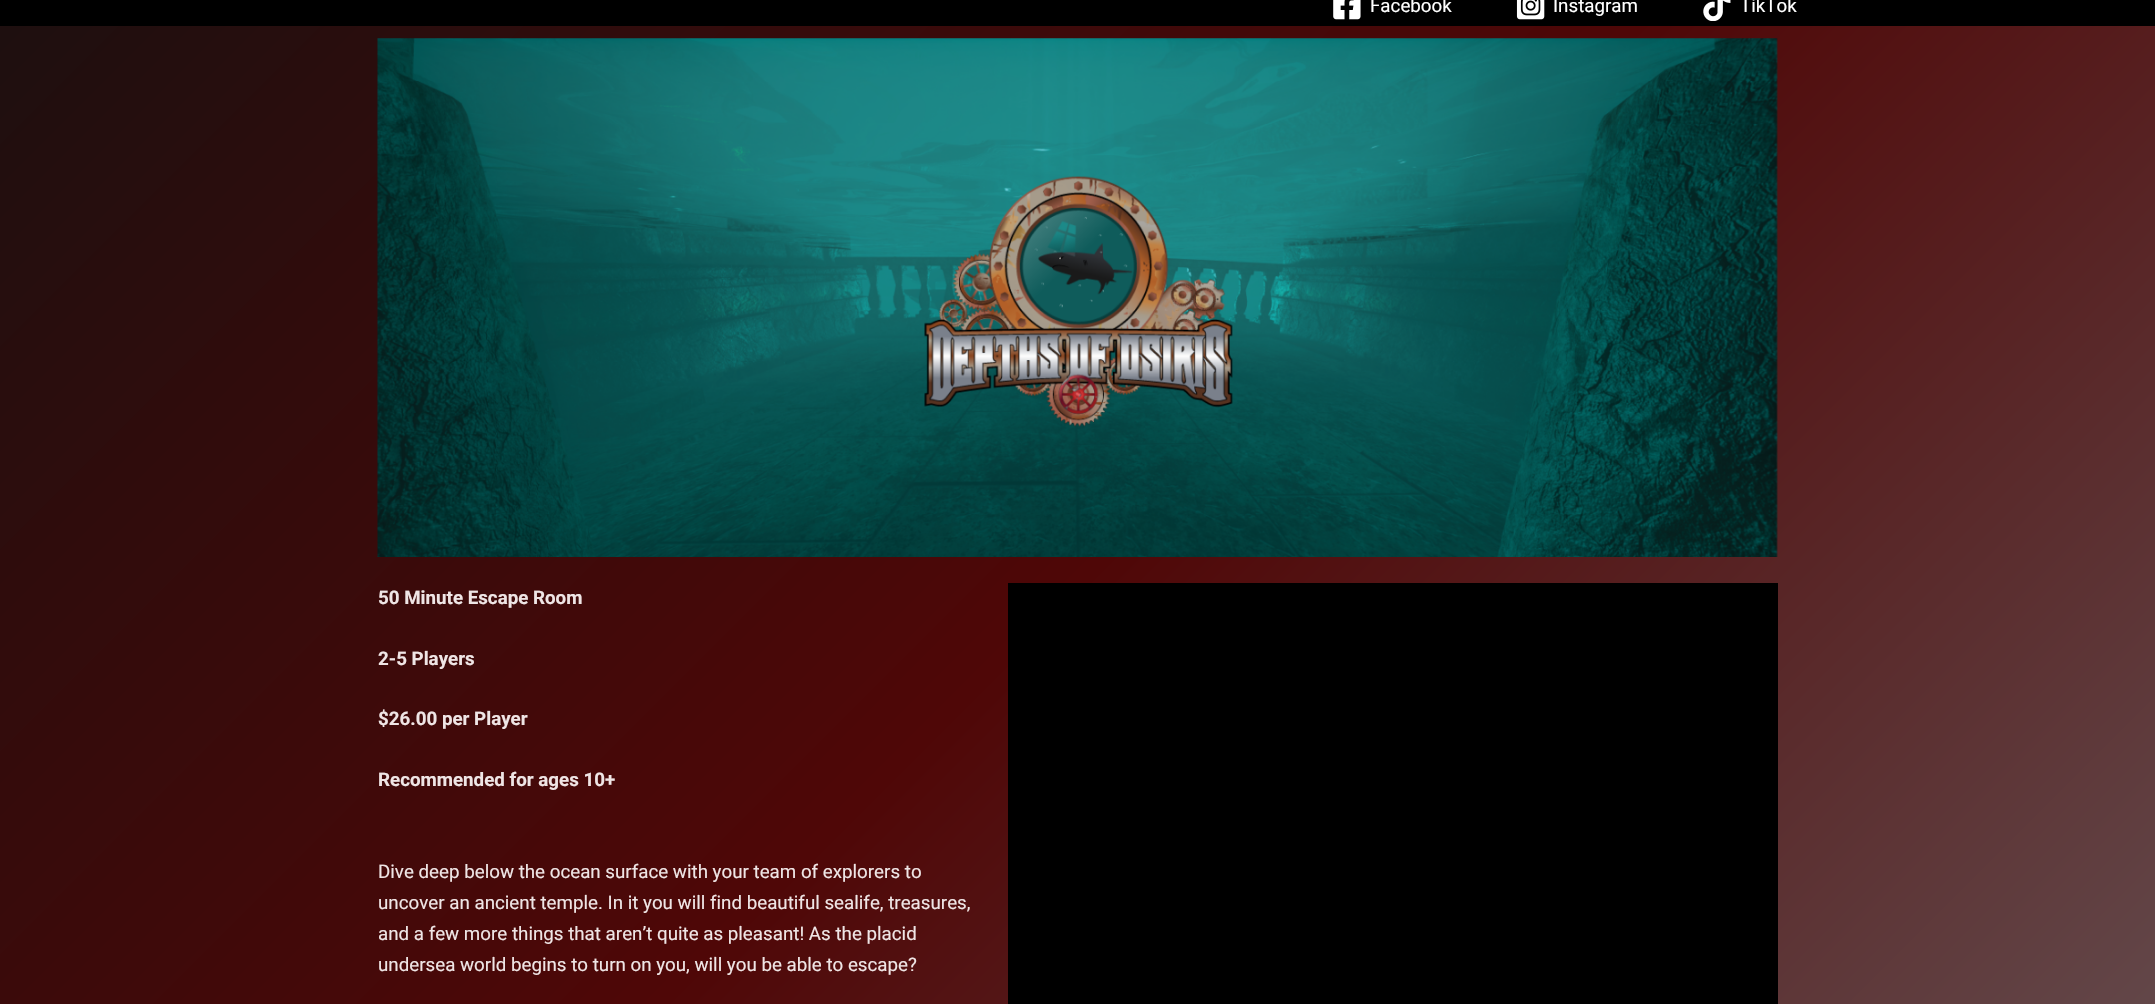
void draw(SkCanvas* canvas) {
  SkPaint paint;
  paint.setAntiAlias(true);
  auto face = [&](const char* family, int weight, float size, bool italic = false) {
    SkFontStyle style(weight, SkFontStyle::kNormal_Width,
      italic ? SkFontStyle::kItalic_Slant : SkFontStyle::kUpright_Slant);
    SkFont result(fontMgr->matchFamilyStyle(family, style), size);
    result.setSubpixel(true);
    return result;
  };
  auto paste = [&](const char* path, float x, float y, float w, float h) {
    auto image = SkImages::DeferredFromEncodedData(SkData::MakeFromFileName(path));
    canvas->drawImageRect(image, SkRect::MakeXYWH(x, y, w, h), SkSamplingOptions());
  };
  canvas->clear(0xffffffff);
  {
    const SkColor colors[] = {0xff121111, 0xff4f0707, 0xff6e6c6f};
    const float stops[] = {0, 0.46f, 1};
    const SkPoint ends[] = {{-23, -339}, {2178, 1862}};
    paint.setShader(SkGradientShader::MakeLinear(ends, colors, stops, 3, SkTileMode::kClamp));
    paint.setAlpha(255);
  }
  canvas->drawRect(SkRect::MakeXYWH(0, 26, 2155, 978), paint);
  paint.setShader(nullptr);
  paint.setColor(0xff000000);
  canvas->drawRect(SkRect::MakeXYWH(0, 0, 2155, 26), paint);
  paste("img/1.png", 1333, 0, 28, 20);
  paste("img/2.png", 1516, 0, 29, 20);
  paste("img/3.png", 1703, 0, 28, 21);
  paste("img/4.png", 377, 38, 1401, 519);
  canvas->drawRect(SkRect::MakeXYWH(1008, 583, 770, 421), paint);
  auto f0 = face("Roboto", 400, 18.75f);
  paint.setColor(0xffffffff);
  {
    const struct { const char* s; float x, y; } items[] = {
      {"Facebook", 1370, 12},
      {"Instagram", 1553, 12},
      {"TikTok", 1740, 12},
    };
    for (auto [s, x, y] : items) {
      canvas->drawString(s, x, y, f0, paint);
    }
  }
  auto f1 = face("Roboto", 700, 18.75f);
  paint.setColor(0xffefe5e5);
  {
    const struct { const char* s; float x, y; } items[] = {
      {"50 Minute Escape Room", 378, 604},
      {"2-5 Players", 378, 665},
      {"$26.00 per Player", 378, 725},
      {"Recommended for ages 10+", 378, 786},
    };
    for (auto [s, x, y] : items) {
      canvas->drawString(s, x, y, f1, paint);
    }
  }
  {
    const struct { const char* s; float x, y; } items[] = {
      {"Dive deep below the ocean surface with your team of explorers to", 378, 878},
      {"uncover an ancient temple. In it you will find beautiful sealife, treasures,", 378, 909},
      {"and a few more things that aren’t quite as pleasant! As the placid", 378, 940},
      {"undersea world begins to turn on you, will you be able to escape?", 378, 971},
    };
    for (auto [s, x, y] : items) {
      canvas->drawString(s, x, y, f0, paint);
    }
  }
}
